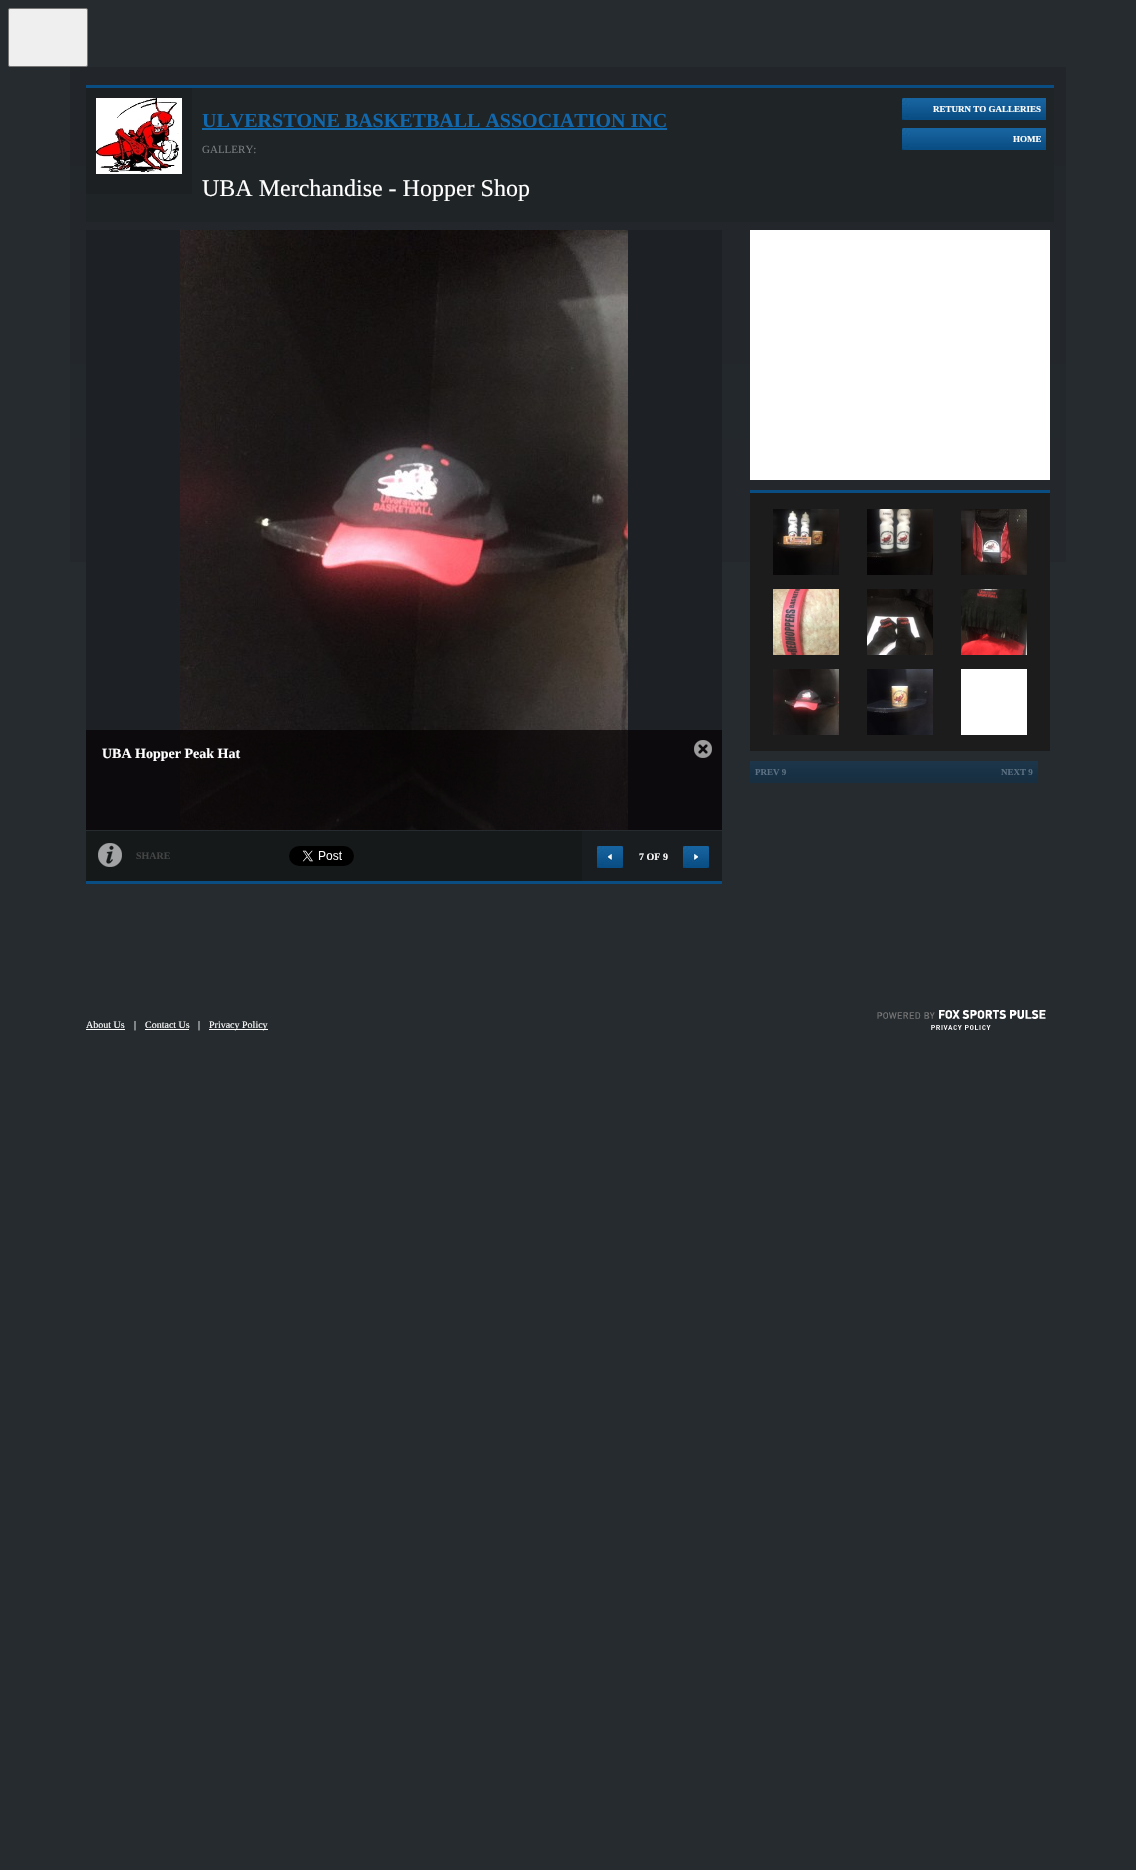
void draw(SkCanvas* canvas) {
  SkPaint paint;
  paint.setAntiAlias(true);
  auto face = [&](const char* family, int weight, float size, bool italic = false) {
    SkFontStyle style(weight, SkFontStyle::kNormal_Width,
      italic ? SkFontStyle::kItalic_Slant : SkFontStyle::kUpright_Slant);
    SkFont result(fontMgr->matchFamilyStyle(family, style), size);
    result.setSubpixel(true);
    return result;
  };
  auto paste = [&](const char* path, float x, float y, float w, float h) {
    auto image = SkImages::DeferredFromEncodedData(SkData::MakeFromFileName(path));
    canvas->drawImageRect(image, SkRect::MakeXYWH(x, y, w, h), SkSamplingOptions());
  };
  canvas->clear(0xff262b2f);
  paint.setColor(0xffefefef);
  canvas->drawRoundRect(SkRect::MakeXYWH(8.5f, 8.5f, 79, 58), 1.5f, 1.5f, paint);
  paint.setStroke(true);
  paint.setStrokeWidth(1);
  paint.setColor(0xff767676);
  canvas->drawRoundRect(SkRect::MakeXYWH(8.5f, 8.5f, 79, 58), 1.5f, 1.5f, paint);
  paint.setStroke(false);
  {
    const SkColor colors[] = {0xff22262a, 0xff262b2f};
    const float stops[] = {0, 1};
    const SkPoint ends[] = {{70, 67}, {70, 1058}};
    paint.setShader(SkGradientShader::MakeLinear(ends, colors, stops, 2, SkTileMode::kClamp));
    paint.setAlpha(255);
  }
  canvas->drawRect(SkRect::MakeXYWH(70, 67, 996, 495), paint);
  paint.setShader(nullptr);
  {
    const struct { float x, y, w, h; SkColor color; } items[] = {
      {86, 88, 968, 134, 0xff1f2427},
      {86, 85, 968, 3, 0xff0a4d82},
      {86, 88, 106, 106, 0xff1c2023},
    };
    for (auto [x, y, w, h, color] : items) {
      paint.setColor(color);
      canvas->drawRect(SkRect::MakeXYWH(x, y, w, h), paint);
    }
  }
  paste("img/1.png", 96, 98, 86, 76);
  paint.setColor(0xff1168ad);
  canvas->drawRect(SkRect::MakeXYWH(202, 128, 465, 2), paint);
  paste("img/2.png", 902, 98, 144, 22);
  paste("img/2.png", 902, 128, 144, 22);
  paint.setColor(0xff1d2025);
  canvas->drawRect(SkRect::MakeXYWH(86, 230, 636, 600), paint);
  paste("img/4.png", 180, 230, 448, 600);
  paint.setColor(0xb3040001);
  canvas->drawRect(SkRect::MakeXYWH(86, 730, 636, 100), paint);
  paste("img/3.png", 694, 740, 18, 18);
  paint.setColor(0xff0a4d82);
  canvas->drawRect(SkRect::MakeXYWH(86, 881, 636, 3), paint);
  paint.setColor(0xff15191a);
  canvas->drawRect(SkRect::MakeXYWH(86, 831, 496, 50), paint);
  paste("img/5.png", 98, 843, 24, 24);
  paste("img/6.png", 289, 846, 65, 20);
  paint.setColor(0xff191d20);
  canvas->drawRect(SkRect::MakeXYWH(582, 831, 140, 50), paint);
  paste("img/7.png", 597, 846, 26, 22);
  paste("img/8.png", 683, 846, 26, 22);
  {
    const struct { float x, y, w, h; SkColor color; } items[] = {
      {750, 230, 300, 250, 0xffffffff},
      {750, 493, 300, 258, 0xff1c1c1c},
      {750, 490, 300, 3, 0xff0a4d82},
    };
    for (auto [x, y, w, h, color] : items) {
      paint.setColor(color);
      canvas->drawRect(SkRect::MakeXYWH(x, y, w, h), paint);
    }
  }
  paste("img/9.png", 773, 509, 66, 66);
  paste("img/10.png", 867, 509, 66, 66);
  paste("img/11.png", 961, 509, 66, 66);
  paste("img/12.png", 773, 589, 66, 66);
  paste("img/13.png", 867, 589, 66, 66);
  paste("img/14.png", 961, 589, 66, 66);
  paste("img/15.png", 773, 669, 66, 66);
  paste("img/16.png", 867, 669, 66, 66);
  paint.setColor(0xffffffff);
  canvas->drawRect(SkRect::MakeXYWH(961, 669, 66, 66), paint);
  paste("img/17.png", 750, 761, 144, 22);
  paste("img/17.png", 894, 761, 144, 22);
  {
    const struct { float x, y, w, h; SkColor color; } items[] = {
      {86, 1029, 39, 1, 0xffffffff},
      {145, 1029, 44, 1, 0xffffffff},
      {209, 1029, 59, 1, 0xffffffff},
    };
    for (auto [x, y, w, h, color] : items) {
      paint.setColor(color);
      canvas->drawRect(SkRect::MakeXYWH(x, y, w, h), paint);
    }
  }
  paste("img/18.png", 877, 1010, 169, 20);
  auto f0 = face("Liberation Serif", 700, 20);
  paint.setColor(0xff1168ad);
  canvas->drawString("ULVERSTONE BASKETBALL ASSOCIATION INC", 202, 127, f0, paint);
  auto f1 = face("Liberation Serif", 400, 11);
  paint.setColor(0xff787c7f);
  canvas->drawString("GALLERY:", 202, 153, f1, paint);
  auto f2 = face("Liberation Serif", 400, 24);
  paint.setColor(0xffffffff);
  canvas->drawString("UBA Merchandise - Hopper Shop", 202, 196, f2, paint);
  auto f3 = face("Liberation Serif", 700, 9);
  canvas->drawString("RETURN TO GALLERIES", 933, 112, f3, paint);
  canvas->drawString("HOME", 1013, 142, f3, paint);
  auto f4 = face("Liberation Serif", 700, 14);
  canvas->drawString("UBA Hopper Peak Hat", 102, 758, f4, paint);
  auto f5 = face("Liberation Serif", 700, 10);
  paint.setColor(0xff444444);
  canvas->drawString("SHARE", 136, 859, f5, paint);
  paint.setColor(0xffffffff);
  canvas->drawString("7 OF 9", 639, 860, f5, paint);
  paint.setColor(0xff5c7182);
  canvas->drawString("PREV 9", 755, 775, f3, paint);
  canvas->drawString("NEXT 9", 1001, 775, f3, paint);
  auto f6 = face("Liberation Serif", 400, 10);
  paint.setColor(0xffffffff);
  {
    const struct { const char* s; float x, y; } items[] = {
      {"About Us", 86, 1028},
      {"|", 134, 1028},
      {"Contact Us", 145, 1028},
      {"|", 198, 1028},
      {"Privacy Policy", 209, 1028},
    };
    for (auto [s, x, y] : items) {
      canvas->drawString(s, x, y, f6, paint);
    }
  }
}
